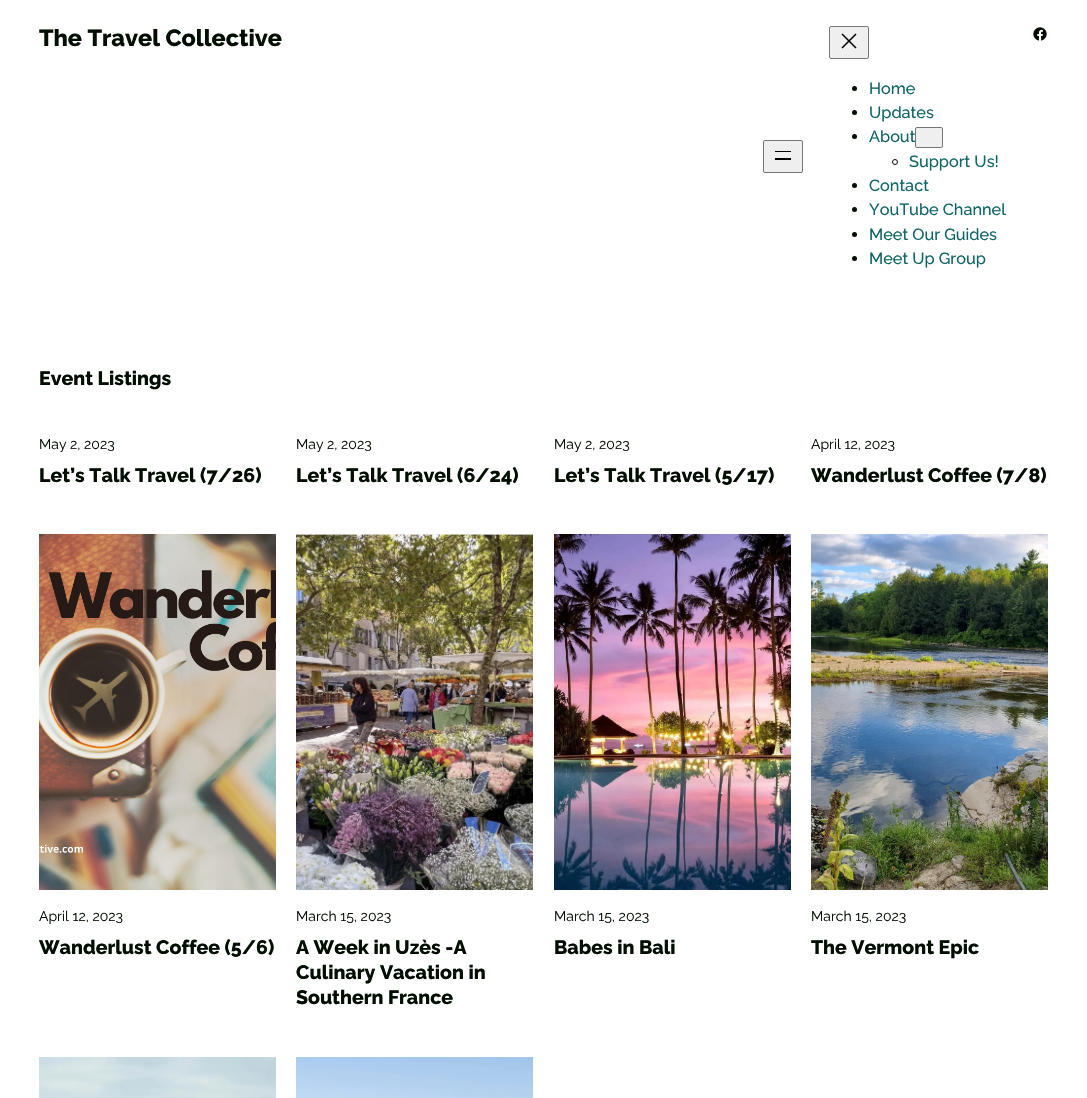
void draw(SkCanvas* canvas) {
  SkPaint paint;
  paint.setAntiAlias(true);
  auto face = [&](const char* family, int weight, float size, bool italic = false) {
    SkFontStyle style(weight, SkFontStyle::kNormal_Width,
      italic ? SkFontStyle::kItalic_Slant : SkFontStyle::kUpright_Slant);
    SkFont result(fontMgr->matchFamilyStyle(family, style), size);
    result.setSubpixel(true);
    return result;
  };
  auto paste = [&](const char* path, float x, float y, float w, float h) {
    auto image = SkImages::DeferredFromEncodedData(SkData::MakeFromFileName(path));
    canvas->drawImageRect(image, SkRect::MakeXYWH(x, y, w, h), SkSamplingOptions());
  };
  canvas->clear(0xffffffff);
  paste("img/1.png", 1033, 27, 14, 14);
  paint.setColor(0xffefefef);
  canvas->drawRoundRect(SkRect::MakeXYWH(763.5f, 140.5f, 39, 32), 1.5f, 1.5f, paint);
  paint.setStroke(true);
  paint.setStrokeWidth(1);
  paint.setColor(0xff767676);
  canvas->drawRoundRect(SkRect::MakeXYWH(763.5f, 140.5f, 39, 32), 1.5f, 1.5f, paint);
  paint.setStroke(false);
  paint.setColor(0xff000000);
  canvas->drawRect(SkRect::MakeXYWH(775, 151, 16, 1), paint);
  canvas->drawRect(SkRect::MakeXYWH(775, 158, 16, 2), paint);
  paint.setColor(0xffefefef);
  canvas->drawRoundRect(SkRect::MakeXYWH(829.5f, 26.5f, 39, 32), 1.5f, 1.5f, paint);
  paint.setStroke(true);
  paint.setColor(0xff767676);
  canvas->drawRoundRect(SkRect::MakeXYWH(829.5f, 26.5f, 39, 32), 1.5f, 1.5f, paint);
  paste("img/2.png", 841, 33, 16, 16);
  paint.setStroke(false);
  paint.setColor(0xff020e01);
  canvas->drawCircle(854.5f, 88.5f, 2.5f, paint);
  canvas->drawCircle(854.5f, 112.5f, 2.5f, paint);
  canvas->drawCircle(854.5f, 136.5f, 2.5f, paint);
  paint.setStroke(true);
  canvas->drawCircle(895, 162, 2.5f, paint);
  paint.setStroke(false);
  canvas->drawCircle(854.5f, 185.5f, 2.5f, paint);
  canvas->drawCircle(854.5f, 209.5f, 2.5f, paint);
  canvas->drawCircle(854.5f, 234.5f, 2.5f, paint);
  canvas->drawCircle(854.5f, 258.5f, 2.5f, paint);
  paste("img/3.png", 39, 534, 237, 356);
  paste("img/4.png", 296, 534, 237, 356);
  paste("img/5.png", 554, 534, 237, 356);
  paste("img/6.png", 811, 534, 237, 356);
  paste("img/7.png", 39, 1057, 237, 41);
  paste("img/8.png", 296, 1057, 237, 41);
  auto f0 = face("Raleway", 800, 23.4f);
  canvas->drawString("The Travel Collective", 39, 46, f0, paint);
  auto f1 = face("Raleway", 500, 16.25f);
  paint.setColor(0xff0f6466);
  {
    const struct { const char* s; float x, y; } items[] = {
      {"Home", 869, 94},
      {"Updates", 869, 118},
      {"About", 869, 142},
    };
    for (auto [s, x, y] : items) {
      canvas->drawString(s, x, y, f1, paint);
    }
  }
  paint.setColor(0xffefefef);
  canvas->drawRoundRect(SkRect::MakeXYWH(915.5f, 127.5f, 27, 20), 1.5f, 1.5f, paint);
  paint.setStroke(true);
  paint.setColor(0xff767676);
  canvas->drawRoundRect(SkRect::MakeXYWH(915.5f, 127.5f, 27, 20), 1.5f, 1.5f, paint);
  paint.setStroke(false);
  paint.setColor(0xff0f6466);
  {
    const struct { const char* s; float x, y; } items[] = {
      {"Support Us!", 909, 167},
      {"Contact", 869, 191},
      {"YouTube Channel", 869, 215},
      {"Meet Our Guides", 869, 240},
      {"Meet Up Group", 869, 264},
    };
    for (auto [s, x, y] : items) {
      canvas->drawString(s, x, y, f1, paint);
    }
  }
  auto f2 = face("Raleway", 800, 19.5f);
  paint.setColor(0xff020e01);
  canvas->drawString("Event Listings", 39, 385, f2, paint);
  auto f3 = face("Raleway", 400, 14);
  canvas->drawString("May 2, 2023", 39, 449, f3, paint);
  canvas->drawString("Let’s Talk Travel (7/26)", 39, 482, f2, paint);
  canvas->drawString("May 2, 2023", 296, 449, f3, paint);
  canvas->drawString("Let’s Talk Travel (6/24)", 296, 482, f2, paint);
  canvas->drawString("May 2, 2023", 554, 449, f3, paint);
  canvas->drawString("Let’s Talk Travel (5/17)", 554, 482, f2, paint);
  canvas->drawString("April 12, 2023", 811, 449, f3, paint);
  canvas->drawString("Wanderlust Coffee (7/8)", 811, 482, f2, paint);
  canvas->drawString("April 12, 2023", 39, 921, f3, paint);
  canvas->drawString("Wanderlust Coffee (5/6)", 39, 954, f2, paint);
  canvas->drawString("March 15, 2023", 296, 921, f3, paint);
  {
    const struct { const char* s; float x, y; } items[] = {
      {"A Week in Uzès -A", 296, 954},
      {"Culinary Vacation in", 296, 979},
      {"Southern France", 296, 1004},
    };
    for (auto [s, x, y] : items) {
      canvas->drawString(s, x, y, f2, paint);
    }
  }
  canvas->drawString("March 15, 2023", 554, 921, f3, paint);
  canvas->drawString("Babes in Bali", 554, 954, f2, paint);
  canvas->drawString("March 15, 2023", 811, 921, f3, paint);
  canvas->drawString("The Vermont Epic", 811, 954, f2, paint);
}
